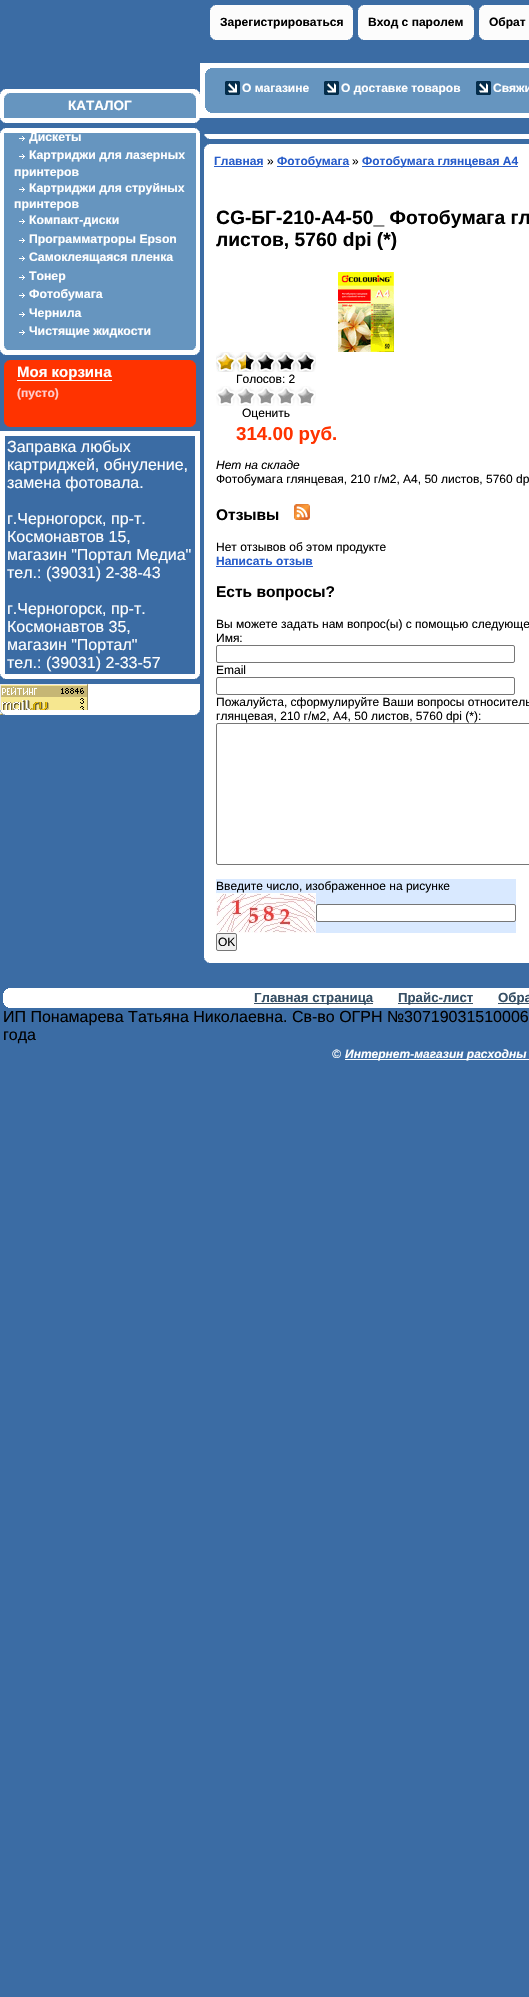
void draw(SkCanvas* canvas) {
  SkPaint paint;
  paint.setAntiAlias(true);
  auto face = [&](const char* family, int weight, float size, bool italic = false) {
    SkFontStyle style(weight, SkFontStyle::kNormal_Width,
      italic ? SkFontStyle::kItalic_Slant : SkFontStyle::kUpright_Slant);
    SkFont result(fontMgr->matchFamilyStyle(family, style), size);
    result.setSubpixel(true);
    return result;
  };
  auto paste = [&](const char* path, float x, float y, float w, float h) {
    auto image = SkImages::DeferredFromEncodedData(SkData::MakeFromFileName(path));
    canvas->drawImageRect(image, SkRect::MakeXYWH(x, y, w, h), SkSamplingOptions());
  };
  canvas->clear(0xff3b6ca4);
  {
    const struct { float x, y, w, h; SkColor color; } items[] = {
      {210, 10, 143, 25, 0xfffcfcfc},
      {215, 5, 133, 1, 0xfffcfcfc},
      {348, 5, 2, 1, 0xff9bb4d0},
      {213, 5, 2, 1, 0xff9bb4d0},
      {213, 6, 137, 1, 0xfffcfcfc},
      {350, 6, 1, 1, 0xff9bb4d0},
      {212, 6, 1, 1, 0xff9bb4d0},
      {212, 7, 139, 1, 0xfffcfcfc},
      {351, 7, 1, 1, 0xff9bb4d0},
      {211, 7, 1, 1, 0xff9bb4d0},
      {211, 8, 141, 2, 0xfffcfcfc},
      {352, 8, 1, 2, 0xff9bb4d0},
      {210, 8, 1, 2, 0xff9bb4d0},
      {211, 35, 141, 2, 0xfffcfcfc},
      {352, 35, 1, 2, 0xff9bb4d0},
      {210, 35, 1, 2, 0xff9bb4d0},
      {212, 37, 139, 1, 0xfffcfcfc},
      {351, 37, 1, 1, 0xff9bb4d0},
      {211, 37, 1, 1, 0xff9bb4d0},
      {213, 38, 137, 1, 0xfffcfcfc},
      {350, 38, 1, 1, 0xff9bb4d0},
      {212, 38, 1, 1, 0xff9bb4d0},
      {215, 39, 133, 1, 0xfffcfcfc},
      {348, 39, 2, 1, 0xff9bb4d0},
      {213, 39, 2, 1, 0xff9bb4d0},
      {358, 10, 116, 25, 0xfffcfcfc},
      {363, 5, 106, 1, 0xfffcfcfc},
      {469, 5, 2, 1, 0xff9bb4d0},
      {361, 5, 2, 1, 0xff9bb4d0},
      {361, 6, 110, 1, 0xfffcfcfc},
      {471, 6, 1, 1, 0xff9bb4d0},
      {360, 6, 1, 1, 0xff9bb4d0},
      {360, 7, 112, 1, 0xfffcfcfc},
      {472, 7, 1, 1, 0xff9bb4d0},
      {359, 7, 1, 1, 0xff9bb4d0},
      {359, 8, 114, 2, 0xfffcfcfc},
      {473, 8, 1, 2, 0xff9bb4d0},
      {358, 8, 1, 2, 0xff9bb4d0},
      {359, 35, 114, 2, 0xfffcfcfc},
      {473, 35, 1, 2, 0xff9bb4d0},
      {358, 35, 1, 2, 0xff9bb4d0},
      {360, 37, 112, 1, 0xfffcfcfc},
      {472, 37, 1, 1, 0xff9bb4d0},
      {359, 37, 1, 1, 0xff9bb4d0},
      {361, 38, 110, 1, 0xfffcfcfc},
      {471, 38, 1, 1, 0xff9bb4d0},
      {360, 38, 1, 1, 0xff9bb4d0},
      {363, 39, 106, 1, 0xfffcfcfc},
      {469, 39, 2, 1, 0xff9bb4d0},
      {361, 39, 2, 1, 0xff9bb4d0},
      {479, 10, 50, 25, 0xfffcfcfc},
      {484, 5, 45, 1, 0xfffcfcfc},
      {482, 5, 2, 1, 0xff9bb4d0},
      {482, 6, 47, 1, 0xfffcfcfc},
      {481, 6, 1, 1, 0xff9bb4d0},
      {481, 7, 48, 1, 0xfffcfcfc},
      {480, 7, 1, 1, 0xff9bb4d0},
      {480, 8, 49, 2, 0xfffcfcfc},
      {479, 8, 1, 2, 0xff9bb4d0},
      {480, 35, 49, 2, 0xfffcfcfc},
      {479, 35, 1, 2, 0xff9bb4d0},
      {481, 37, 48, 1, 0xfffcfcfc},
      {480, 37, 1, 1, 0xff9bb4d0},
      {482, 38, 47, 1, 0xfffcfcfc},
      {481, 38, 1, 1, 0xff9bb4d0},
      {484, 39, 45, 1, 0xfffcfcfc},
      {482, 39, 2, 1, 0xff9bb4d0},
      {200, 63, 329, 55, 0xffffffff},
      {205, 68, 324, 45, 0xff6695bf},
      {205, 68, 5, 1, 0xffffffff},
      {205, 69, 3, 1, 0xffffffff},
      {205, 70, 2, 1, 0xffffffff},
      {205, 71, 1, 2, 0xffffffff},
    };
    for (auto [x, y, w, h, color] : items) {
      paint.setColor(color);
      canvas->drawRect(SkRect::MakeXYWH(x, y, w, h), paint);
    }
  }
  paste("img/1.png", 225, 81, 15, 14);
  paste("img/1.png", 324, 81, 15, 14);
  paste("img/1.png", 476, 81, 15, 14);
  {
    const struct { float x, y, w, h; SkColor color; } items[] = {
      {205, 108, 1, 2, 0xffffffff},
      {205, 110, 2, 1, 0xffffffff},
      {205, 111, 3, 1, 0xffffffff},
      {205, 112, 5, 1, 0xffffffff},
      {0, 94, 200, 24, 0xffffffff},
      {5, 89, 190, 1, 0xffffffff},
      {195, 89, 2, 1, 0xff9db5d1},
      {3, 89, 2, 1, 0xff9db5d1},
      {3, 90, 194, 1, 0xffffffff},
      {197, 90, 1, 1, 0xff9db5d1},
      {2, 90, 1, 1, 0xff9db5d1},
      {2, 91, 196, 1, 0xffffffff},
      {198, 91, 1, 1, 0xff9db5d1},
      {1, 91, 1, 1, 0xff9db5d1},
      {1, 92, 198, 2, 0xffffffff},
      {199, 92, 1, 2, 0xff9db5d1},
      {0, 92, 1, 2, 0xff9db5d1},
      {4, 98, 192, 20, 0xff6695bf},
      {9, 93, 182, 1, 0xff6695bf},
      {191, 93, 2, 1, 0xffb2cadf},
      {7, 93, 2, 1, 0xffb2cadf},
      {7, 94, 186, 1, 0xff6695bf},
      {193, 94, 1, 1, 0xffb2cadf},
      {6, 94, 1, 1, 0xffb2cadf},
      {6, 95, 188, 1, 0xff6695bf},
      {194, 95, 1, 1, 0xffb2cadf},
      {5, 95, 1, 1, 0xffb2cadf},
      {5, 96, 190, 2, 0xff6695bf},
      {195, 96, 1, 2, 0xffb2cadf},
      {4, 96, 1, 2, 0xffb2cadf},
      {1, 118, 198, 2, 0xffffffff},
      {199, 118, 1, 2, 0xff9db5d1},
      {0, 118, 1, 2, 0xff9db5d1},
      {2, 120, 196, 1, 0xffffffff},
      {198, 120, 1, 1, 0xff9db5d1},
      {1, 120, 1, 1, 0xff9db5d1},
      {3, 121, 194, 1, 0xffffffff},
      {197, 121, 1, 1, 0xff9db5d1},
      {2, 121, 1, 1, 0xff9db5d1},
      {5, 122, 190, 1, 0xffffffff},
      {195, 122, 2, 1, 0xff9db5d1},
      {3, 122, 2, 1, 0xff9db5d1},
      {0, 133, 200, 217, 0xffffffff},
      {5, 128, 190, 1, 0xffffffff},
      {195, 128, 2, 1, 0xff9db5d1},
      {3, 128, 2, 1, 0xff9db5d1},
      {3, 129, 194, 1, 0xffffffff},
      {197, 129, 1, 1, 0xff9db5d1},
      {2, 129, 1, 1, 0xff9db5d1},
      {2, 130, 196, 1, 0xffffffff},
      {198, 130, 1, 1, 0xff9db5d1},
      {1, 130, 1, 1, 0xff9db5d1},
      {1, 131, 198, 2, 0xffffffff},
      {199, 131, 1, 2, 0xff9db5d1},
      {0, 131, 1, 2, 0xff9db5d1},
      {4, 133, 192, 213, 0xff6695bf},
    };
    for (auto [x, y, w, h, color] : items) {
      paint.setColor(color);
      canvas->drawRect(SkRect::MakeXYWH(x, y, w, h), paint);
    }
  }
  paste("img/2.png", 19, 136, 6, 5);
  paste("img/2.png", 19, 154, 6, 5);
  paste("img/2.png", 19, 187, 6, 5);
  paste("img/2.png", 19, 219, 6, 5);
  paste("img/2.png", 19, 238, 6, 5);
  paste("img/2.png", 19, 256, 6, 5);
  paste("img/2.png", 19, 275, 6, 5);
  paste("img/2.png", 19, 293, 6, 5);
  paste("img/2.png", 19, 312, 6, 5);
  paste("img/2.png", 19, 330, 6, 5);
  {
    const struct { float x, y, w, h; SkColor color; } items[] = {
      {5, 346, 190, 2, 0xff6695bf},
      {195, 346, 1, 2, 0xffb2cadf},
      {4, 346, 1, 2, 0xffb2cadf},
      {6, 348, 188, 1, 0xff6695bf},
      {194, 348, 1, 1, 0xffb2cadf},
      {5, 348, 1, 1, 0xffb2cadf},
      {7, 349, 186, 1, 0xff6695bf},
      {193, 349, 1, 1, 0xffb2cadf},
      {6, 349, 1, 1, 0xffb2cadf},
      {1, 350, 198, 2, 0xffffffff},
      {199, 350, 1, 2, 0xff9db5d1},
      {0, 350, 1, 2, 0xff9db5d1},
      {2, 352, 196, 1, 0xffffffff},
      {198, 352, 1, 1, 0xff9db5d1},
      {1, 352, 1, 1, 0xff9db5d1},
      {3, 353, 194, 1, 0xffffffff},
      {197, 353, 1, 1, 0xff9db5d1},
      {2, 353, 1, 1, 0xff9db5d1},
      {5, 354, 190, 1, 0xffffffff},
      {195, 354, 2, 1, 0xff9db5d1},
      {3, 354, 2, 1, 0xff9db5d1},
      {4, 365, 192, 57, 0xffff3300},
      {9, 360, 182, 1, 0xffff3300},
      {191, 360, 2, 1, 0xff9d4f52},
      {7, 360, 2, 1, 0xff9d4f52},
      {7, 361, 186, 1, 0xffff3300},
      {193, 361, 1, 1, 0xff9d4f52},
      {6, 361, 1, 1, 0xff9d4f52},
      {6, 362, 188, 1, 0xffff3300},
      {194, 362, 1, 1, 0xff9d4f52},
      {5, 362, 1, 1, 0xff9d4f52},
      {5, 363, 190, 2, 0xffff3300},
      {195, 363, 1, 2, 0xff9d4f52},
      {4, 363, 1, 2, 0xff9d4f52},
      {17, 380, 95, 1, 0xffffffff},
      {5, 422, 190, 2, 0xffff3300},
      {195, 422, 1, 2, 0xff9d4f52},
      {4, 422, 1, 2, 0xff9d4f52},
      {6, 424, 188, 1, 0xffff3300},
      {194, 424, 1, 1, 0xff9d4f52},
      {5, 424, 1, 1, 0xff9d4f52},
      {7, 425, 186, 1, 0xffff3300},
      {193, 425, 1, 1, 0xff9d4f52},
      {6, 425, 1, 1, 0xff9d4f52},
      {9, 426, 182, 1, 0xffff3300},
      {191, 426, 2, 1, 0xff9d4f52},
      {7, 426, 2, 1, 0xff9d4f52},
    };
    for (auto [x, y, w, h, color] : items) {
      paint.setColor(color);
      canvas->drawRect(SkRect::MakeXYWH(x, y, w, h), paint);
    }
  }
  paint.setStroke(true);
  paint.setStrokeWidth(5);
  paint.setColor(0xffffffff);
  canvas->drawRect(SkRect::MakeXYWH(2.5f, 433.5f, 195, 243), paint);
  paint.setStroke(false);
  {
    const struct { float x, y, w, h; SkColor color; } items[] = {
      {0, 676, 200, 3, 0xff3b6ca4},
      {199, 674, 1, 2, 0xff9db5d1},
      {0, 674, 1, 2, 0xff9db5d1},
      {2, 676, 196, 1, 0xffffffff},
      {198, 676, 1, 1, 0xff9db5d1},
      {1, 676, 1, 1, 0xff9db5d1},
      {3, 677, 194, 1, 0xffffffff},
      {197, 677, 1, 1, 0xff9db5d1},
      {2, 677, 1, 1, 0xff9db5d1},
      {5, 678, 190, 1, 0xffffffff},
      {195, 678, 2, 1, 0xff9db5d1},
      {3, 678, 2, 1, 0xff9db5d1},
      {88, 684, 112, 26, 0xffffffff},
    };
    for (auto [x, y, w, h, color] : items) {
      paint.setColor(color);
      canvas->drawRect(SkRect::MakeXYWH(x, y, w, h), paint);
    }
  }
  paste("img/3.png", 0, 684, 88, 31);
  {
    const struct { float x, y, w, h; SkColor color; } items[] = {
      {1, 710, 198, 2, 0xffffffff},
      {199, 710, 1, 2, 0xff9db5d1},
      {0, 710, 1, 2, 0xff9db5d1},
      {2, 712, 196, 1, 0xffffffff},
      {198, 712, 1, 1, 0xff9db5d1},
      {1, 712, 1, 1, 0xff9db5d1},
      {3, 713, 194, 1, 0xffffffff},
      {197, 713, 1, 1, 0xff9db5d1},
      {2, 713, 1, 1, 0xff9db5d1},
      {5, 714, 190, 1, 0xffffffff},
      {195, 714, 2, 1, 0xff9db5d1},
      {3, 714, 2, 1, 0xff9db5d1},
      {205, 134, 324, 2, 0xffffffff},
      {204, 134, 1, 2, 0xff9db5d1},
      {206, 136, 323, 1, 0xffffffff},
      {205, 136, 1, 1, 0xff9db5d1},
      {207, 137, 322, 1, 0xffffffff},
      {206, 137, 1, 1, 0xff9db5d1},
      {209, 138, 320, 1, 0xffffffff},
      {207, 138, 2, 1, 0xff9db5d1},
      {204, 149, 325, 809, 0xffffffff},
      {209, 144, 320, 1, 0xffffffff},
      {207, 144, 2, 1, 0xff9db5d1},
      {207, 145, 322, 1, 0xffffffff},
      {206, 145, 1, 1, 0xff9db5d1},
      {206, 146, 323, 1, 0xffffffff},
      {205, 146, 1, 1, 0xff9db5d1},
      {205, 147, 324, 2, 0xffffffff},
      {204, 147, 1, 2, 0xff9db5d1},
      {214, 166, 49, 1, 0xff275cca},
      {277, 166, 72, 1, 0xff275cca},
      {362, 166, 156, 1, 0xff275cca},
    };
    for (auto [x, y, w, h, color] : items) {
      paint.setColor(color);
      canvas->drawRect(SkRect::MakeXYWH(x, y, w, h), paint);
    }
  }
  paste("img/4.png", 338, 272, 56, 80);
  paste("img/5.png", 216, 352, 100, 20);
  paste("img/6.png", 216, 352, 30, 19);
  paste("img/7.png", 216, 386, 100, 20);
  paste("img/8.png", 294, 504, 16, 16);
  canvas->drawRect(SkRect::MakeXYWH(216, 566, 97, 1), paint);
  paint.setStroke(true);
  paint.setStrokeWidth(1);
  paint.setColor(0xff767676);
  canvas->drawRoundRect(SkRect::MakeXYWH(216.5f, 645.5f, 298, 17), 1.5f, 1.5f, paint);
  canvas->drawRoundRect(SkRect::MakeXYWH(216.5f, 677.5f, 298, 17), 1.5f, 1.5f, paint);
  canvas->drawRoundRect(SkRect::MakeXYWH(216.5f, 723.5f, 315, 141), 1.5f, 1.5f, paint);
  paint.setStroke(false);
  paint.setColor(0xffd9e9ff);
  canvas->drawRect(SkRect::MakeXYWH(216, 879, 300, 14), paint);
  canvas->drawRect(SkRect::MakeXYWH(316, 893, 200, 40), paint);
  paste("img/9.png", 216, 893, 100, 40);
  paint.setColor(0xffffffff);
  canvas->drawRoundRect(SkRect::MakeXYWH(316.5f, 904.5f, 199, 17), 1.5f, 1.5f, paint);
  paint.setStroke(true);
  paint.setColor(0xff767676);
  canvas->drawRoundRect(SkRect::MakeXYWH(316.5f, 904.5f, 199, 17), 1.5f, 1.5f, paint);
  paint.setStroke(false);
  paint.setColor(0xffefefef);
  canvas->drawRoundRect(SkRect::MakeXYWH(216.5f, 933.5f, 20, 17), 1.5f, 1.5f, paint);
  paint.setStroke(true);
  paint.setColor(0xff767676);
  canvas->drawRoundRect(SkRect::MakeXYWH(216.5f, 933.5f, 20, 17), 1.5f, 1.5f, paint);
  paint.setStroke(false);
  {
    const struct { float x, y, w, h; SkColor color; } items[] = {
      {205, 958, 324, 2, 0xffffffff},
      {204, 958, 1, 2, 0xff9db5d1},
      {206, 960, 323, 1, 0xffffffff},
      {205, 960, 1, 1, 0xff9db5d1},
      {207, 961, 322, 1, 0xffffffff},
      {206, 961, 1, 1, 0xff9db5d1},
      {209, 962, 320, 1, 0xffffffff},
      {207, 962, 2, 1, 0xff9db5d1},
      {3, 988, 526, 20, 0xffffffff},
      {3, 988, 5, 1, 0xff3b6ca4},
      {3, 989, 3, 1, 0xff3b6ca4},
      {3, 990, 2, 1, 0xff3b6ca4},
      {3, 991, 1, 2, 0xff3b6ca4},
      {254, 1003, 119, 1, 0xff354e64},
      {398, 1003, 75, 1, 0xff354e64},
      {498, 1003, 31, 1, 0xff354e64},
      {3, 1003, 1, 2, 0xff3b6ca4},
      {3, 1005, 2, 1, 0xff3b6ca4},
      {3, 1006, 3, 1, 0xff3b6ca4},
      {3, 1007, 5, 1, 0xff3b6ca4},
      {345, 1059, 184, 1, 0xffffffff},
    };
    for (auto [x, y, w, h, color] : items) {
      paint.setColor(color);
      canvas->drawRect(SkRect::MakeXYWH(x, y, w, h), paint);
    }
  }
  auto f0 = face("Liberation Sans", 700, 12);
  paint.setColor(0xff000000);
  {
    const struct { const char* s; float x, y; } items[] = {
      {"Зарегистрироваться", 220, 26},
      {"Вход с паролем", 368, 26},
      {"Обрат", 489, 26},
    };
    for (auto [s, x, y] : items) {
      canvas->drawString(s, x, y, f0, paint);
    }
  }
  paint.setColor(0xffffffff);
  {
    const struct { const char* s; float x, y; } items[] = {
      {"О магазине", 242, 92},
      {"О доставке товаров", 341, 92},
      {"Свяжи", 493, 92},
    };
    for (auto [s, x, y] : items) {
      canvas->drawString(s, x, y, f0, paint);
    }
  }
  auto f1 = face("Liberation Sans", 700, 13.5f);
  canvas->drawString("КАТАЛОГ", 68, 110, f1, paint);
  auto f2 = face("Liberation Sans", 700, 12.25f);
  {
    const struct { const char* s; float x, y; } items[] = {
      {"Дискеты", 29, 141},
      {"Картриджи для лазерных", 29, 159},
      {"принтеров", 14, 176},
      {"Картриджи для струйных", 29, 192},
      {"принтеров", 14, 208},
      {"Компакт-диски", 29, 224},
      {"Программатроры Epson", 29, 243},
      {"Самоклеящаяся пленка", 29, 261},
      {"Тонер", 29, 280},
      {"Фотобумага", 29, 298},
      {"Чернила", 29, 317},
      {"Чистящие жидкости", 29, 335},
    };
    for (auto [s, x, y] : items) {
      canvas->drawString(s, x, y, f2, paint);
    }
  }
  auto f3 = face("Liberation Sans", 700, 15);
  canvas->drawString("Моя корзина", 17, 377, f3, paint);
  paint.setColor(0xffffcccc);
  canvas->drawString("(пусто)", 17, 397, f0, paint);
  auto f4 = face("Liberation Sans", 400, 16);
  paint.setColor(0xffffffff);
  {
    const struct { const char* s; float x, y; } items[] = {
      {"Заправка любых", 7, 452},
      {"картриджей, обнуление,", 7, 470},
      {"замена фотовала.", 7, 488},
      {"г.Черногорск, пр-т.", 7, 524},
      {"Космонавтов 15,", 7, 542},
      {"магазин \"Портал Медиа\"", 7, 560},
      {"тел.: (39031) 2-38-43", 7, 578},
      {"г.Черногорск, пр-т.", 7, 614},
      {"Космонавтов 35,", 7, 632},
      {"магазин \"Портал\"", 7, 650},
      {"тел.: (39031) 2-33-57", 7, 668},
    };
    for (auto [s, x, y] : items) {
      canvas->drawString(s, x, y, f4, paint);
    }
  }
  paint.setColor(0xff275cca);
  canvas->drawString("Главная", 214, 165, f0, paint);
  auto f5 = face("Liberation Sans", 400, 12);
  paint.setColor(0xff000000);
  canvas->drawString("»", 267, 165, f5, paint);
  paint.setColor(0xff275cca);
  canvas->drawString("Фотобумага", 277, 165, f0, paint);
  paint.setColor(0xff000000);
  canvas->drawString("»", 352, 165, f5, paint);
  paint.setColor(0xff275cca);
  canvas->drawString("Фотобумага глянцевая А4", 362, 165, f0, paint);
  auto f6 = face("Liberation Sans", 700, 19.25f);
  paint.setColor(0xff000000);
  canvas->drawString("CG-БГ-210-А4-50_ Фотобумага гл", 216, 224, f6, paint);
  canvas->drawString("листов, 5760 dpi (*)", 216, 246, f6, paint);
  canvas->drawString("Голосов: 2", 236, 383, f5, paint);
  canvas->drawString("Оценить", 242, 417, f5, paint);
  auto f7 = face("Liberation Sans", 700, 18.75f);
  paint.setColor(0xffff3300);
  canvas->drawString("314.00 руб.", 236, 440, f7, paint);
  auto f8 = face("Liberation Sans", 400, 12, true);
  paint.setColor(0xff000000);
  canvas->drawString("Нет на складе", 216, 469, f8, paint);
  canvas->drawString("Фотобумага глянцевая, 210 г/м2, А4, 50 листов, 5760 dp", 216, 483, f5, paint);
  auto f9 = face("Liberation Sans", 700, 15.5f);
  canvas->drawString("Отзывы", 216, 520, f9, paint);
  canvas->drawString("Нет отзывов об этом продукте", 216, 551, f5, paint);
  paint.setColor(0xff275cca);
  canvas->drawString("Написать отзыв", 216, 565, f0, paint);
  paint.setColor(0xff000000);
  canvas->drawString("Есть вопросы?", 216, 597, f9, paint);
  {
    const struct { const char* s; float x, y; } items[] = {
      {"Вы можете задать нам вопрос(ы) с помощью следующе", 216, 628},
      {"Имя:", 216, 642},
      {"Email", 216, 674},
      {"Пожалуйста, сформулируйте Ваши вопросы относитель", 216, 706},
      {"глянцевая, 210 г/м2, А4, 50 листов, 5760 dpi (*):", 216, 720},
      {"Введите число, изображенное на рисунке", 216, 890},
      {"OK", 218, 946},
    };
    for (auto [s, x, y] : items) {
      canvas->drawString(s, x, y, f5, paint);
    }
  }
  auto f10 = face("Liberation Sans", 700, 13.25f);
  paint.setColor(0xff354e64);
  {
    const struct { const char* s; float x, y; } items[] = {
      {"Главная страница", 254, 1002},
      {"Прайс-лист", 398, 1002},
      {"Обра", 498, 1002},
    };
    for (auto [s, x, y] : items) {
      canvas->drawString(s, x, y, f10, paint);
    }
  }
  paint.setColor(0xff000000);
  canvas->drawString("ИП Понамарева Татьяна Николаевна. Св-во ОГРН №30719031510006", 3, 1022, f4, paint);
  canvas->drawString("года", 3, 1040, f4, paint);
  paint.setColor(0xffffffff);
  canvas->drawString("©", 332, 1058, f8, paint);
  auto f11 = face("Liberation Sans", 700, 12, true);
  canvas->drawString("Интернет-магазин расходны", 345, 1058, f11, paint);
}
